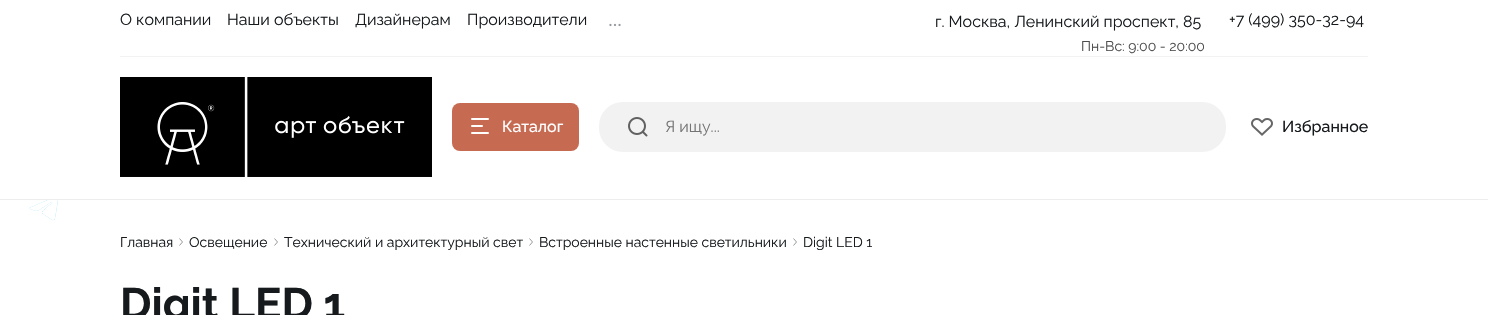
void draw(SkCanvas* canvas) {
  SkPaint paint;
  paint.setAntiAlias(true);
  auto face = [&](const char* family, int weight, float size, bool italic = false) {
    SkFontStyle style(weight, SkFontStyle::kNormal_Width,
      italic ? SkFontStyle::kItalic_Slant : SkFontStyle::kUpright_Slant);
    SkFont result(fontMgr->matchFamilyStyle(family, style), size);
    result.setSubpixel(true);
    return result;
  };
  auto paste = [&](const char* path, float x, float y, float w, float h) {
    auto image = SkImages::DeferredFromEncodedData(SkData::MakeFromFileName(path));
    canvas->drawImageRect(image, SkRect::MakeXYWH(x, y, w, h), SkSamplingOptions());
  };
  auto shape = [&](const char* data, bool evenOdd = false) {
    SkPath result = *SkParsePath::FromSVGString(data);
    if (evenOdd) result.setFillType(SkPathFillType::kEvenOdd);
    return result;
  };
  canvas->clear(0xffffffff);
  paint.setColor(0xffededed);
  canvas->drawRect(SkRect::MakeXYWH(0, 199, 1488, 1), paint);
  paint.setColor(0xfff2f2f2);
  canvas->drawRect(SkRect::MakeXYWH(120, 56, 1248, 1), paint);
  paste("img/1.png", 609, 23, 12, 4);
  paste("img/2.png", 120, 77, 312, 100);
  paint.setColor(0xffc66a52);
  canvas->drawRoundRect(SkRect::MakeXYWH(452, 103, 127, 48), 8, 8, paint);
  paint.setColor(0xffffffff);
  canvas->drawRoundRect(SkRect::MakeXYWH(471, 118, 18, 2), 1, 1, paint);
  canvas->drawRoundRect(SkRect::MakeXYWH(471, 125, 12, 2), 1, 1, paint);
  canvas->drawRoundRect(SkRect::MakeXYWH(471, 132, 18, 2), 1, 1, paint);
  paint.setColor(0xfff2f2f2);
  canvas->drawRoundRect(SkRect::MakeXYWH(599, 102, 627, 50), 24, 24, paint);
  paste("img/3.png", 628, 117, 20, 20);
  paste("img/4.png", 1251, 118, 22, 18);
  paste("img/5.png", 29, 200, 29, 21);
  paint.setStroke(true);
  paint.setStrokeWidth(1);
  paint.setColor(0xff999999);
  canvas->drawPath(shape("M179.5 238.5L182.5 242L179.5 245.5"), paint);
  canvas->drawPath(shape("M274.5 238.5L277.5 242L274.5 245.5"), paint);
  canvas->drawPath(shape("M529.5 238.5L532.5 242L529.5 245.5"), paint);
  canvas->drawPath(shape("M793.5 238.5L796.5 242L793.5 245.5"), paint);
  auto f0 = face("Raleway", 400, 16);
  paint.setStroke(false);
  paint.setColor(0xff161a1d);
  {
    const struct { const char* s; float x, y; } items[] = {
      {"О компании", 120, 25},
      {"Наши объекты", 227, 25},
      {"Дизайнерам", 355, 25},
      {"Производители", 467, 25},
      {"г. Москва, Ленинский проспект, 85", 935, 27},
    };
    for (auto [s, x, y] : items) {
      canvas->drawString(s, x, y, f0, paint);
    }
  }
  auto f1 = face("Raleway", 400, 14);
  paint.setColor(0xff4d4d4d);
  canvas->drawString("Пн-Вс: 9:00 - 20:00", 1081, 51, f1, paint);
  paint.setColor(0xff161a1d);
  canvas->drawString("+7 (499) 350-32-94", 1229, 25, f0, paint);
  auto f2 = face("Raleway", 500, 16);
  paint.setColor(0xffffffff);
  canvas->drawString("Каталог", 502, 132, f2, paint);
  paint.setColor(0xff757575);
  canvas->drawString("Я ищу...", 665, 132, f0, paint);
  paint.setColor(0xff161a1d);
  canvas->drawString("Избранное", 1282, 132, f2, paint);
  {
    const struct { const char* s; float x, y; } items[] = {
      {"Главная", 120, 247},
      {"Освещение", 189, 247},
      {"Технический и архитектурный свет", 284, 247},
      {"Встроенные настенные светильники", 539, 247},
      {"Digit LED 1", 803, 247},
    };
    for (auto [s, x, y] : items) {
      canvas->drawString(s, x, y, f1, paint);
    }
  }
  auto f3 = face("Raleway", 700, 44);
  canvas->drawString("Digit LED 1", 120, 319, f3, paint);
}
